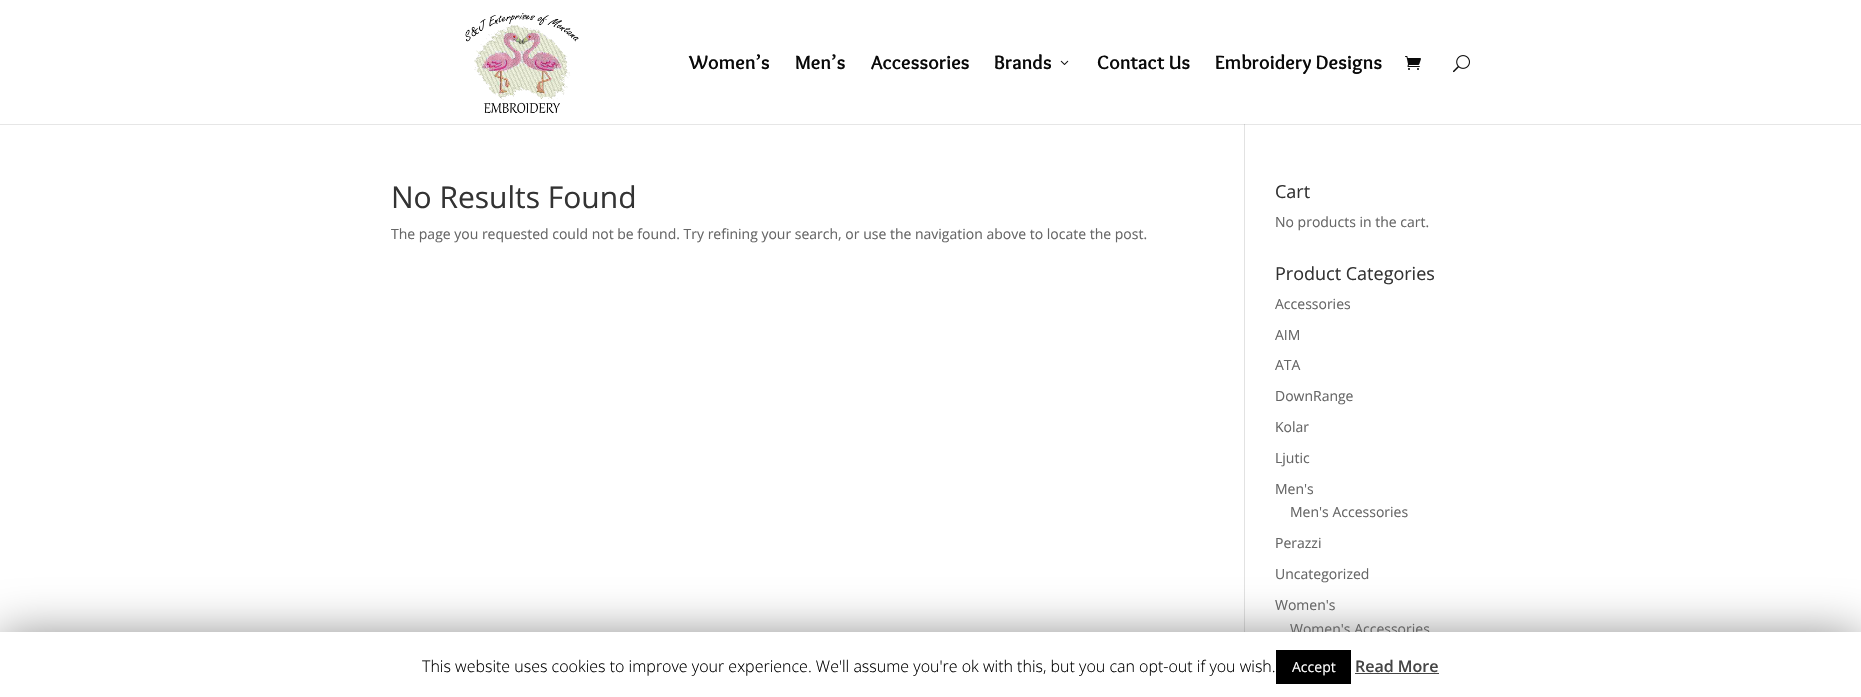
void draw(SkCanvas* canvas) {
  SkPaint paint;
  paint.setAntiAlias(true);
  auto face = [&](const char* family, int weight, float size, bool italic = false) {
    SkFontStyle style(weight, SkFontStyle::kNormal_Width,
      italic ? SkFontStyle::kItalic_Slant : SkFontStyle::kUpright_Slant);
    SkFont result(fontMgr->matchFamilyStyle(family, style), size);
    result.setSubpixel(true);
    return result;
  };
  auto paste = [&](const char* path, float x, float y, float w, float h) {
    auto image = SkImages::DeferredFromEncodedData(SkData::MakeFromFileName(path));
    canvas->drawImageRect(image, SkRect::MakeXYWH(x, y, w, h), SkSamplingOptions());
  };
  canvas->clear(0xffffffff);
  paint.setColor(0xffe6e6e6);
  canvas->drawRect(SkRect::MakeXYWH(0, 124, 1861, 1), paint);
  paste("img/1.png", 465, 13, 114, 100);
  paste("img/2.png", 1060, 60, 9, 5);
  paste("img/3.png", 1405, 56, 16, 14);
  paste("img/4.png", 1453, 55, 17, 18);
  paint.setColor(0xffe2e2e2);
  canvas->drawRect(SkRect::MakeXYWH(1244, 124, 1, 508), paint);
  paint.setColor(0xffcbcbcb);
  canvas->drawRect(SkRect::MakeXYWH(1244, 124, 1, 1), paint);
  paint.setColor(0x80000000);
  paint.setMaskFilter(SkMaskFilter::MakeBlur(kNormal_SkBlurStyle, 25));
  canvas->drawRect(SkRect::MakeXYWH(0, 637, 1861, 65), paint);
  paint.setMaskFilter(nullptr);
  auto f0 = face("Overlock", 700, 20);
  paint.setColor(0xff0a0a0a);
  {
    const struct { const char* s; float x, y; } items[] = {
      {"Women’s", 689, 69},
      {"Men’s", 795, 69},
      {"Accessories", 871, 69},
      {"Brands", 994, 69},
      {"Contact Us", 1097, 69},
      {"Embroidery Designs", 1215, 69},
    };
    for (auto [s, x, y] : items) {
      canvas->drawString(s, x, y, f0, paint);
    }
  }
  auto f1 = face("Open Sans", 400, 30);
  paint.setColor(0xff333333);
  canvas->drawString("No Results Found", 391, 208, f1, paint);
  auto f2 = face("Open Sans", 400, 14);
  paint.setColor(0xff666666);
  canvas->drawString("The page you requested could not be found. Try refining your search, or use the navigation above to locate the post.", 391, 239, f2, paint);
  auto f3 = face("Open Sans", 400, 18);
  paint.setColor(0xff333333);
  canvas->drawString("Cart", 1275, 198, f3, paint);
  paint.setColor(0xff666666);
  canvas->drawString("No products in the cart.", 1275, 227, f2, paint);
  paint.setColor(0xff333333);
  canvas->drawString("Product Categories", 1275, 280, f3, paint);
  paint.setColor(0xff666666);
  {
    const struct { const char* s; float x, y; } items[] = {
      {"Accessories", 1275, 309},
      {"AIM", 1275, 340},
      {"ATA", 1275, 370},
      {"DownRange", 1275, 401},
      {"Kolar", 1275, 432},
      {"Ljutic", 1275, 463},
      {"Men's", 1275, 494},
      {"Men's Accessories", 1290, 517},
      {"Perazzi", 1275, 548},
      {"Uncategorized", 1275, 579},
      {"Women's", 1275, 610},
      {"Women's Accessories", 1290, 634},
    };
    for (auto [s, x, y] : items) {
      canvas->drawString(s, x, y, f2, paint);
    }
  }
  paint.setColor(0xffffffff);
  canvas->drawRect(SkRect::MakeXYWH(0, 632, 1861, 65), paint);
  auto f4 = face("Open Sans", 300, 16);
  paint.setColor(0xff000000);
  canvas->drawString("This website uses cookies to improve your experience. We'll assume you're ok with this, but you can opt-out if you wish.", 422, 672, f4, paint);
  canvas->drawRect(SkRect::MakeXYWH(1276, 650, 75, 34), paint);
  paint.setColor(0xffffffff);
  canvas->drawString("Accept", 1292, 672, f2, paint);
  auto f5 = face("Open Sans", 600, 16);
  paint.setColor(0xff444444);
  canvas->drawString("Read More", 1355, 672, f5, paint);
  canvas->drawRect(SkRect::MakeXYWH(1355, 673, 84, 1), paint);
}
